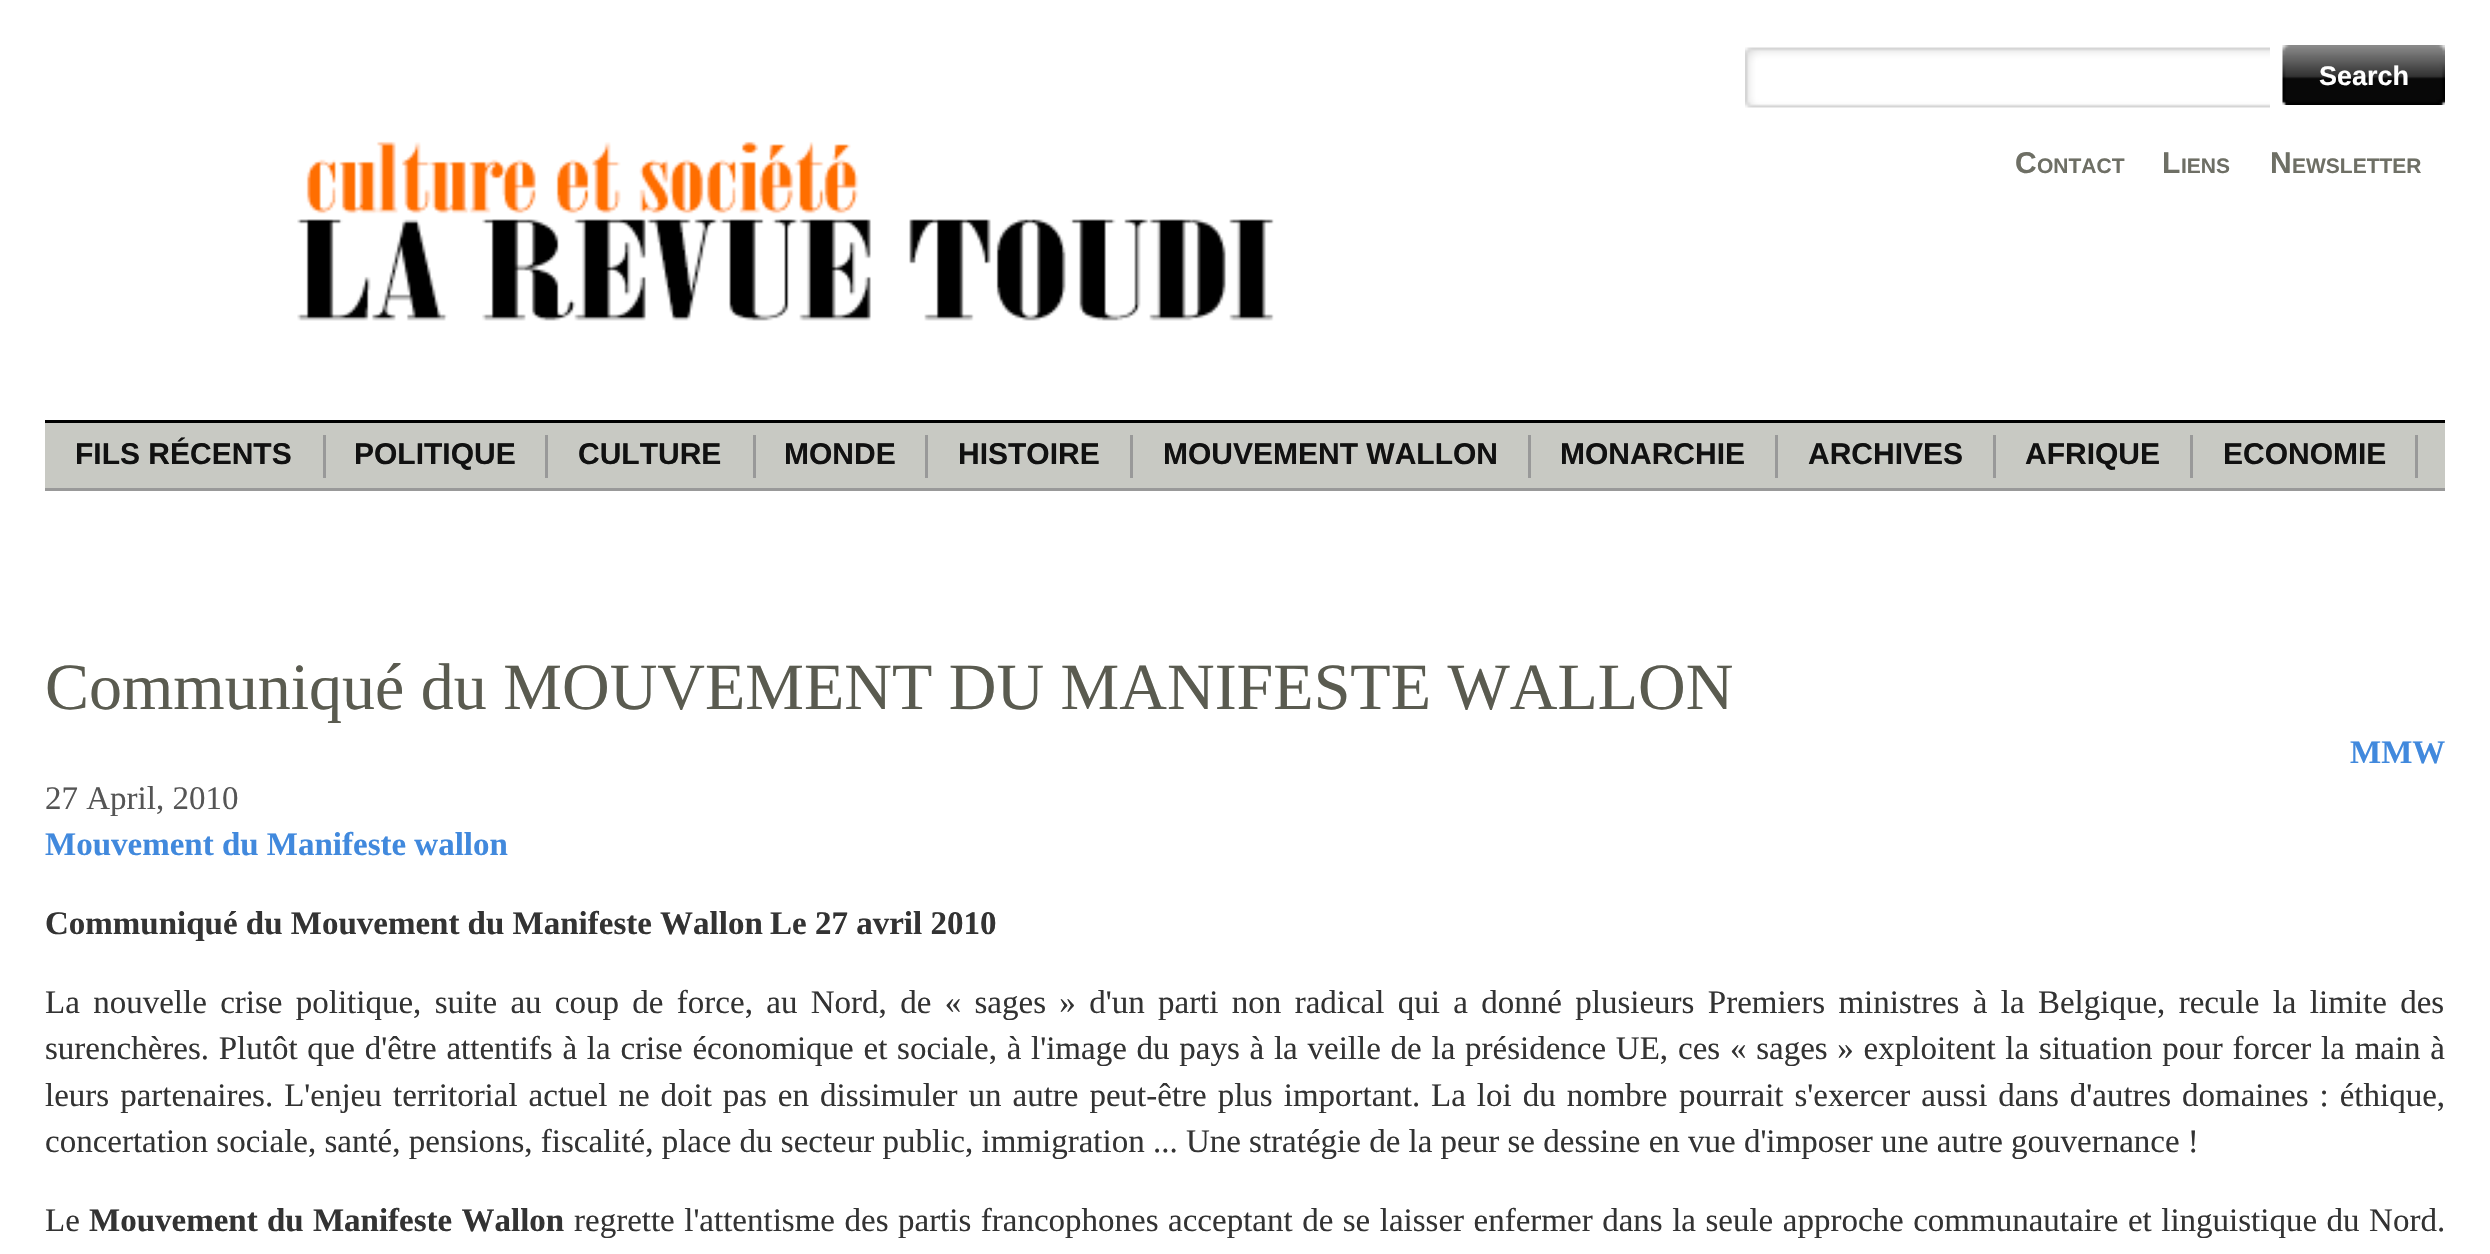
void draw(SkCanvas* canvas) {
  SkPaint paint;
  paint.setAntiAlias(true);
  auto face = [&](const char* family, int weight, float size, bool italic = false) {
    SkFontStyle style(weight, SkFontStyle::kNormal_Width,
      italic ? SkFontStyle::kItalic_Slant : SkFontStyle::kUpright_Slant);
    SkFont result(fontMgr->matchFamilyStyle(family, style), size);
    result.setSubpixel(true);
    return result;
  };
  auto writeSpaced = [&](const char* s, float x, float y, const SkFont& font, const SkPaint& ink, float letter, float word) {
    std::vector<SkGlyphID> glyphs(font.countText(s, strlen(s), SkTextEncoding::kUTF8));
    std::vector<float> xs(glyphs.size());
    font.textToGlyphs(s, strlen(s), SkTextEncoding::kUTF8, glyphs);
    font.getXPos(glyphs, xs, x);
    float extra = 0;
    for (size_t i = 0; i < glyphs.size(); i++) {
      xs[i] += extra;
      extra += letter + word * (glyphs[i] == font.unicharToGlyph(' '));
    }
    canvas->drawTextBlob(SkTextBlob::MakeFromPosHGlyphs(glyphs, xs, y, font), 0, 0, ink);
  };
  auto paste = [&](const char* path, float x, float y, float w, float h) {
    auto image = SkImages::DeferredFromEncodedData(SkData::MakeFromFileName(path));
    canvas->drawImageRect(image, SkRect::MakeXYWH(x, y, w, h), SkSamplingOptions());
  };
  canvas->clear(0xffffffff);
  paste("img/1.png", 1745, 47, 525, 61);
  paste("img/2.png", 2282, 45, 163, 60);
  paste("img/3.png", 297, 141, 977, 180);
  {
    const struct { float x, y, w, h; SkColor color; } items[] = {
      {45, 488, 2400, 3, 0xff999999},
      {45, 423, 2400, 65, 0xffc8c9c3},
      {45, 420, 2400, 3, 0xff000000},
      {323, 435, 3, 43, 0xff999999},
      {545, 435, 3, 43, 0xff999999},
      {753, 435, 3, 43, 0xff999999},
      {925, 435, 3, 43, 0xff999999},
      {1130, 435, 3, 43, 0xff999999},
      {1528, 435, 3, 43, 0xff999999},
      {1775, 435, 3, 43, 0xff999999},
      {1993, 435, 3, 43, 0xff999999},
      {2190, 435, 3, 43, 0xff999999},
      {2415, 435, 3, 43, 0xff999999},
    };
    for (auto [x, y, w, h, color] : items) {
      paint.setColor(color);
      canvas->drawRect(SkRect::MakeXYWH(x, y, w, h), paint);
    }
  }
  auto f0 = face("Liberation Sans", 700, 27);
  paint.setColor(0xffffffff);
  canvas->drawString("Search", 2319, 85, f0, paint);
  auto f1 = face("Liberation Sans", 700, 30);
  paint.setColor(0xff6e6f65);
  canvas->drawString("C", 2015, 173, f1, paint);
  auto f2 = face("Liberation Sans", 700, 21);
  canvas->drawString("ONTACT", 2037, 173, f2, paint);
  canvas->drawString("L", 2162, 173, f1, paint);
  canvas->drawString("IENS", 2181, 173, f2, paint);
  canvas->drawString("N", 2270, 173, f1, paint);
  canvas->drawString("EWSLETTER", 2292, 173, f2, paint);
  paint.setColor(0xff111111);
  {
    const struct { const char* s; float x, y; } items[] = {
      {"FILS RÉCENTS", 75, 464},
      {"POLITIQUE", 354, 464},
      {"CULTURE", 578, 464},
      {"MONDE", 784, 464},
      {"HISTOIRE", 958, 464},
      {"MOUVEMENT WALLON", 1163, 464},
      {"MONARCHIE", 1560, 464},
      {"ARCHIVES", 1808, 464},
      {"AFRIQUE", 2025, 464},
      {"ECONOMIE", 2223, 464},
    };
    for (auto [s, x, y] : items) {
      canvas->drawString(s, x, y, f1, paint);
    }
  }
  auto f3 = face("Liberation Serif", 400, 66);
  paint.setColor(0xff5a5b50);
  canvas->drawString("Communiqué du MOUVEMENT DU MANIFESTE WALLON", 45, 709, f3, paint);
  auto f4 = face("Liberation Serif", 700, 33);
  paint.setColor(0xff4189dd);
  canvas->drawString("MMW", 2350, 763, f4, paint);
  auto f5 = face("Liberation Serif", 400, 33);
  paint.setColor(0xff555555);
  canvas->drawString("27 April, 2010", 45, 809, f5, paint);
  paint.setColor(0xff4189dd);
  canvas->drawString("Mouvement du Manifeste wallon", 45, 855, f4, paint);
  paint.setColor(0xff333333);
  canvas->drawString("Communiqué du Mouvement du Manifeste Wallon", 45, 934, f4, paint);
  canvas->drawString("Le 27 avril 2010", 770, 934, f4, paint);
  writeSpaced("La nouvelle crise politique, suite au coup de force, au Nord, de « sages » d'un parti non radical qui a donné plusieurs Premiers ministres à la Belgique, recule la limite des", 45, 1013, f5, paint, 0, 5.1f);
  writeSpaced("surenchères. Plutôt que d'être attentifs à la crise économique et sociale, à l'image du pays à la veille de la présidence UE,", 45, 1059, f5, paint, 0, 1.5f);
  writeSpaced("ces « sages » exploitent la situation pour forcer la main à", 1678, 1059, f5, paint, 0, 1.5f);
  {
    const struct { const char* s; float x, y; } items[] = {
      {"leurs partenaires. L'enjeu", 45, 1106},
      {"territorial actuel ne doit pas en dissimuler un autre peut-être plus important.", 393, 1106},
      {"La loi du nombre", 1431, 1106},
      {"pourrait s'exercer aussi dans d'autres domaines : éthique,", 1679, 1106},
    };
    for (auto [s, x, y] : items) {
      writeSpaced(s, x, y, f5, paint, 0, 2.75f);
    }
  }
  canvas->drawString("concertation sociale, santé, pensions, fiscalité, place du secteur public, immigration ... Une stratégie de la peur se dessine en vue d'imposer une autre gouvernance !", 45, 1152, f5, paint);
  canvas->drawString("Le", 45, 1231, f5, paint);
  canvas->drawString("Mouvement", 89, 1231, f4, paint);
  writeSpaced("du Manifeste Wallon", 267, 1231, f4, paint, 0, 1);
  writeSpaced("regrette l'attentisme des partis francophones acceptant de se laisser enfermer dans la seule approche communautaire et linguistique du Nord.", 574, 1231, f5, paint, 0, 1.25f);
}
